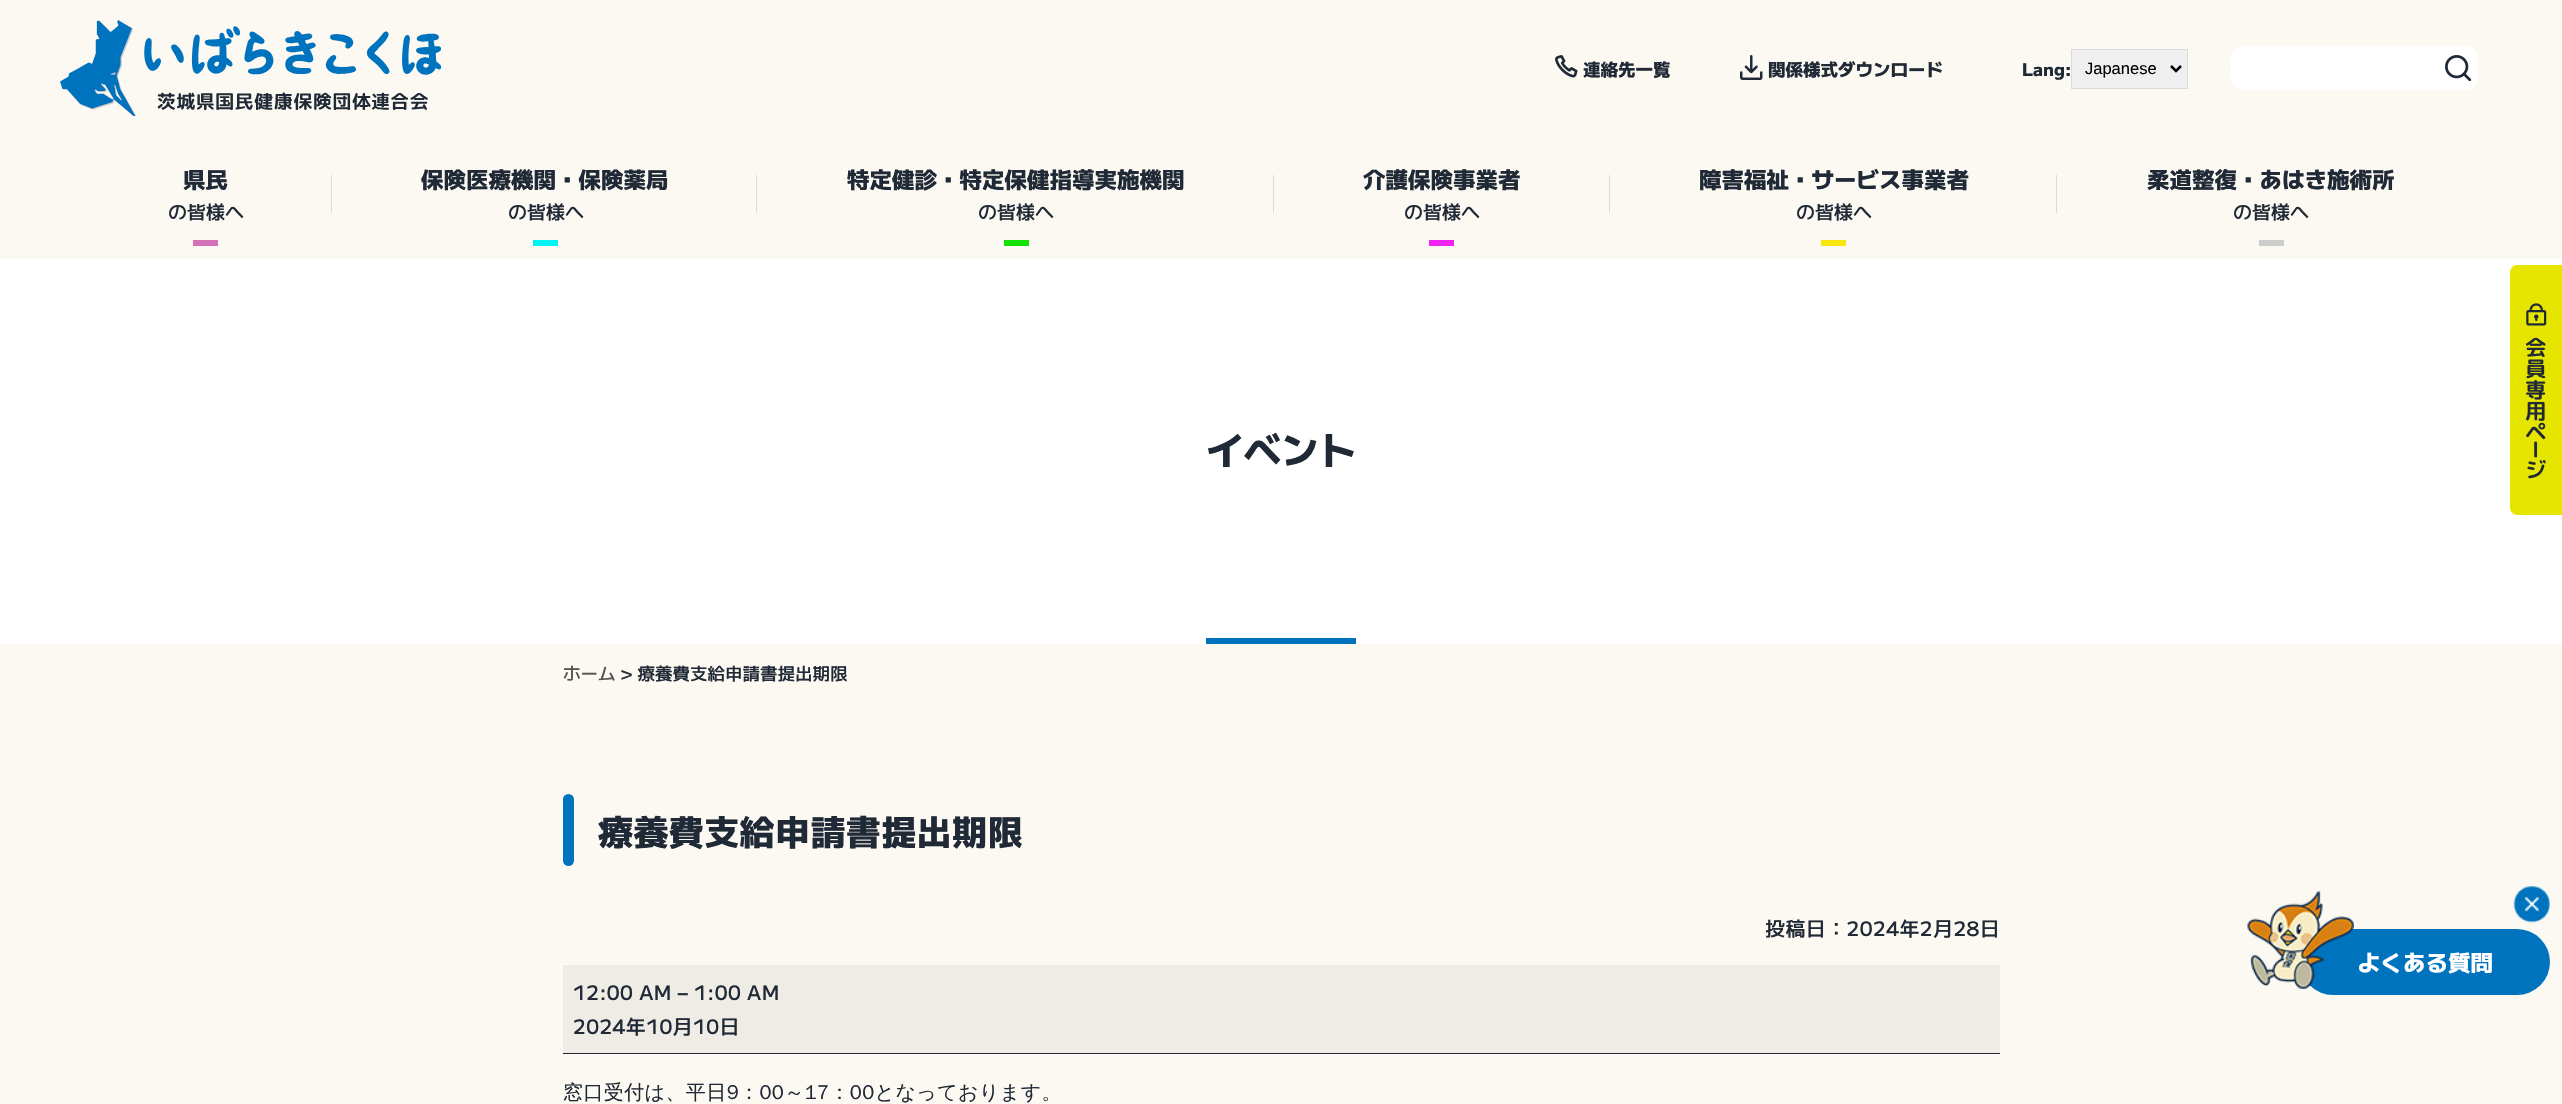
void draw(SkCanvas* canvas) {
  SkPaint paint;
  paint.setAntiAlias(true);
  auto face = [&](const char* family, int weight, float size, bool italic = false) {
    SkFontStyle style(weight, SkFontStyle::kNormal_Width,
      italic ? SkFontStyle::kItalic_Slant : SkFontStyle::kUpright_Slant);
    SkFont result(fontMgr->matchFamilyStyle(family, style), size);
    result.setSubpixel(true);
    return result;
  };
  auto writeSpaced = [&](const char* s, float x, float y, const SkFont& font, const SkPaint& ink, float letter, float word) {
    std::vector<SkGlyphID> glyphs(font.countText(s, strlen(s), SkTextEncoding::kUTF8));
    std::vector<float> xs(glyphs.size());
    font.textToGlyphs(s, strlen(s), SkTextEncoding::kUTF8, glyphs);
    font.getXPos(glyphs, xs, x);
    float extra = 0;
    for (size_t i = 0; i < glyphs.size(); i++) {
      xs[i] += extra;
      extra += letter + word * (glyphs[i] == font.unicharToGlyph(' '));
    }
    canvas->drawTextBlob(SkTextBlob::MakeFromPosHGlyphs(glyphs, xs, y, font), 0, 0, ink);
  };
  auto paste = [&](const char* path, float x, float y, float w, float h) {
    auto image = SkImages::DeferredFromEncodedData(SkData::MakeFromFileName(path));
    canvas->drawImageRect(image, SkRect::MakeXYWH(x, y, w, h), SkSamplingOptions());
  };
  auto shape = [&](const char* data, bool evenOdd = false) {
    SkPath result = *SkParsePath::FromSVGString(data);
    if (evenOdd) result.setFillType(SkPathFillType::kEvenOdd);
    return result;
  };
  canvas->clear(0xffffffff);
  paint.setColor(0xfffcf9f2);
  canvas->drawRect(SkRect::MakeXYWH(0, 0, 2562, 259), paint);
  paste("img/1.png", 60, 20, 381, 96);
  paste("img/2.png", 1555, 55, 23, 23);
  paste("img/3.png", 1740, 55, 23, 25);
  paint.setColor(0xffefefef);
  canvas->drawRect(SkRect::MakeXYWH(2071.5f, 49.5f, 116, 39), paint);
  paint.setStroke(true);
  paint.setStrokeWidth(1);
  paint.setColor(0xffd9dbdd);
  canvas->drawRect(SkRect::MakeXYWH(2071.5f, 49.5f, 116, 39), paint);
  paint.setStrokeWidth(2.5f);
  paint.setColor(0xff000000);
  canvas->drawPath(shape("M2171 66L2176 71L2181 66"), paint);
  paint.setStroke(false);
  paint.setColor(0xffffffff);
  canvas->drawRoundRect(SkRect::MakeXYWH(2231, 46, 247, 44), 13, 13, paint);
  paste("img/4.png", 2445, 55, 26, 26);
  {
    const struct { float x, y, w, h; SkColor color; } items[] = {
      {193, 240, 25, 6, 0xffd470b7},
      {331, 175, 1, 38, 0xffd9dbdd},
      {533, 240, 25, 6, 0xff00f4f4},
      {756, 175, 1, 38, 0xffd9dbdd},
      {1004, 240, 25, 6, 0xff14e202},
      {1273, 175, 1, 38, 0xffd9dbdd},
      {1429, 240, 25, 6, 0xfff122f4},
      {1609, 175, 1, 38, 0xffd9dbdd},
      {1821, 240, 25, 6, 0xfff7e70c},
      {2056, 175, 1, 38, 0xffd9dbdd},
      {2259, 240, 25, 6, 0xffcccccc},
      {1206, 638, 150, 6, 0xff0073bf},
    };
    for (auto [x, y, w, h, color] : items) {
      paint.setColor(color);
      canvas->drawRect(SkRect::MakeXYWH(x, y, w, h), paint);
    }
  }
  paste("img/5.png", 2510, 265, 52, 250);
  paint.setColor(0xfffcf9f2);
  canvas->drawRect(SkRect::MakeXYWH(0, 644, 2562, 460), paint);
  paint.setColor(0xff0073bf);
  canvas->drawRoundRect(SkRect::MakeXYWH(563, 794, 11, 72), 5.5f, 5.5f, paint);
  paint.setColor(0xffefece6);
  canvas->drawRect(SkRect::MakeXYWH(563, 965, 1437, 88), paint);
  paint.setColor(0xff202936);
  canvas->drawRect(SkRect::MakeXYWH(563, 1053, 1437, 1), paint);
  paste("img/6.png", 2513, 886, 37, 37);
  paint.setColor(0xff0073bf);
  canvas->drawRoundRect(SkRect::MakeXYWH(2300, 929, 250, 66), 33, 33, paint);
  paste("img/7.png", 2247, 891, 107, 98);
  auto f0 = face("M PLUS 1", 800, 17.5f);
  paint.setColor(0xff202936);
  {
    const struct { const char* s; float x, y; } items[] = {
      {"連絡先一覧", 1583, 76},
      {"関係様式ダウンロード", 1768, 76},
      {"Lang:", 2022, 76},
    };
    for (auto [s, x, y] : items) {
      canvas->drawString(s, x, y, f0, paint);
    }
  }
  auto f1 = face("Liberation Sans", 400, 16.5f);
  paint.setColor(0xff000000);
  canvas->drawString("Japanese", 2085, 74, f1, paint);
  auto f2 = face("M PLUS 1", 800, 22.5f);
  paint.setColor(0xff202936);
  canvas->drawString("県民", 183, 188, f2, paint);
  auto f3 = face("M PLUS 1", 500, 19);
  canvas->drawString("の皆様へ", 168, 219, f3, paint);
  canvas->drawString("保険医療機関・保険薬局", 421, 188, f2, paint);
  canvas->drawString("の皆様へ", 508, 219, f3, paint);
  canvas->drawString("特定健診・特定保健指導実施機関", 847, 188, f2, paint);
  canvas->drawString("の皆様へ", 978, 219, f3, paint);
  canvas->drawString("介護保険事業者", 1363, 188, f2, paint);
  canvas->drawString("の皆様へ", 1404, 219, f3, paint);
  canvas->drawString("障害福祉・サービス事業者", 1699, 188, f2, paint);
  canvas->drawString("の皆様へ", 1796, 219, f3, paint);
  canvas->drawString("柔道整復・あはき施術所", 2147, 188, f2, paint);
  canvas->drawString("の皆様へ", 2233, 219, f3, paint);
  auto f4 = face("M PLUS 1", 800, 37.5f);
  canvas->drawString("イベント", 1206, 464, f4, paint);
  auto f5 = face("M PLUS 1", 500, 17.5f);
  paint.setColor(0xff555555);
  canvas->drawString("ホーム", 563, 680, f5, paint);
  paint.setColor(0xff202936);
  canvas->drawString("> 療養費支給申請書提出期限", 620, 680, f5, paint);
  auto f6 = face("M PLUS 1", 800, 35);
  writeSpaced("療養費支給申請書提出期限", 598, 845, f6, paint, 0.4f, 0);
  auto f7 = face("M PLUS 1", 500, 20);
  {
    const struct { const char* s; float x, y; } items[] = {
      {"投稿日：2024年2月28日", 1765, 936},
      {"12:00 AM – 1:00 AM", 573, 1000},
      {"2024年10月10日", 573, 1034},
    };
    for (auto [s, x, y] : items) {
      writeSpaced(s, x, y, f7, paint, 0.4f, 0);
    }
  }
  auto f8 = face("WenQuanYi Zen Hei", 500, 20);
  writeSpaced("窓口受付は、平日9：00～17：00となっております。", 563, 1099, f8, paint, 0.4f, 0);
  paint.setColor(0xffffffff);
  canvas->drawString("よくある質問", 2358, 971, f2, paint);
}
